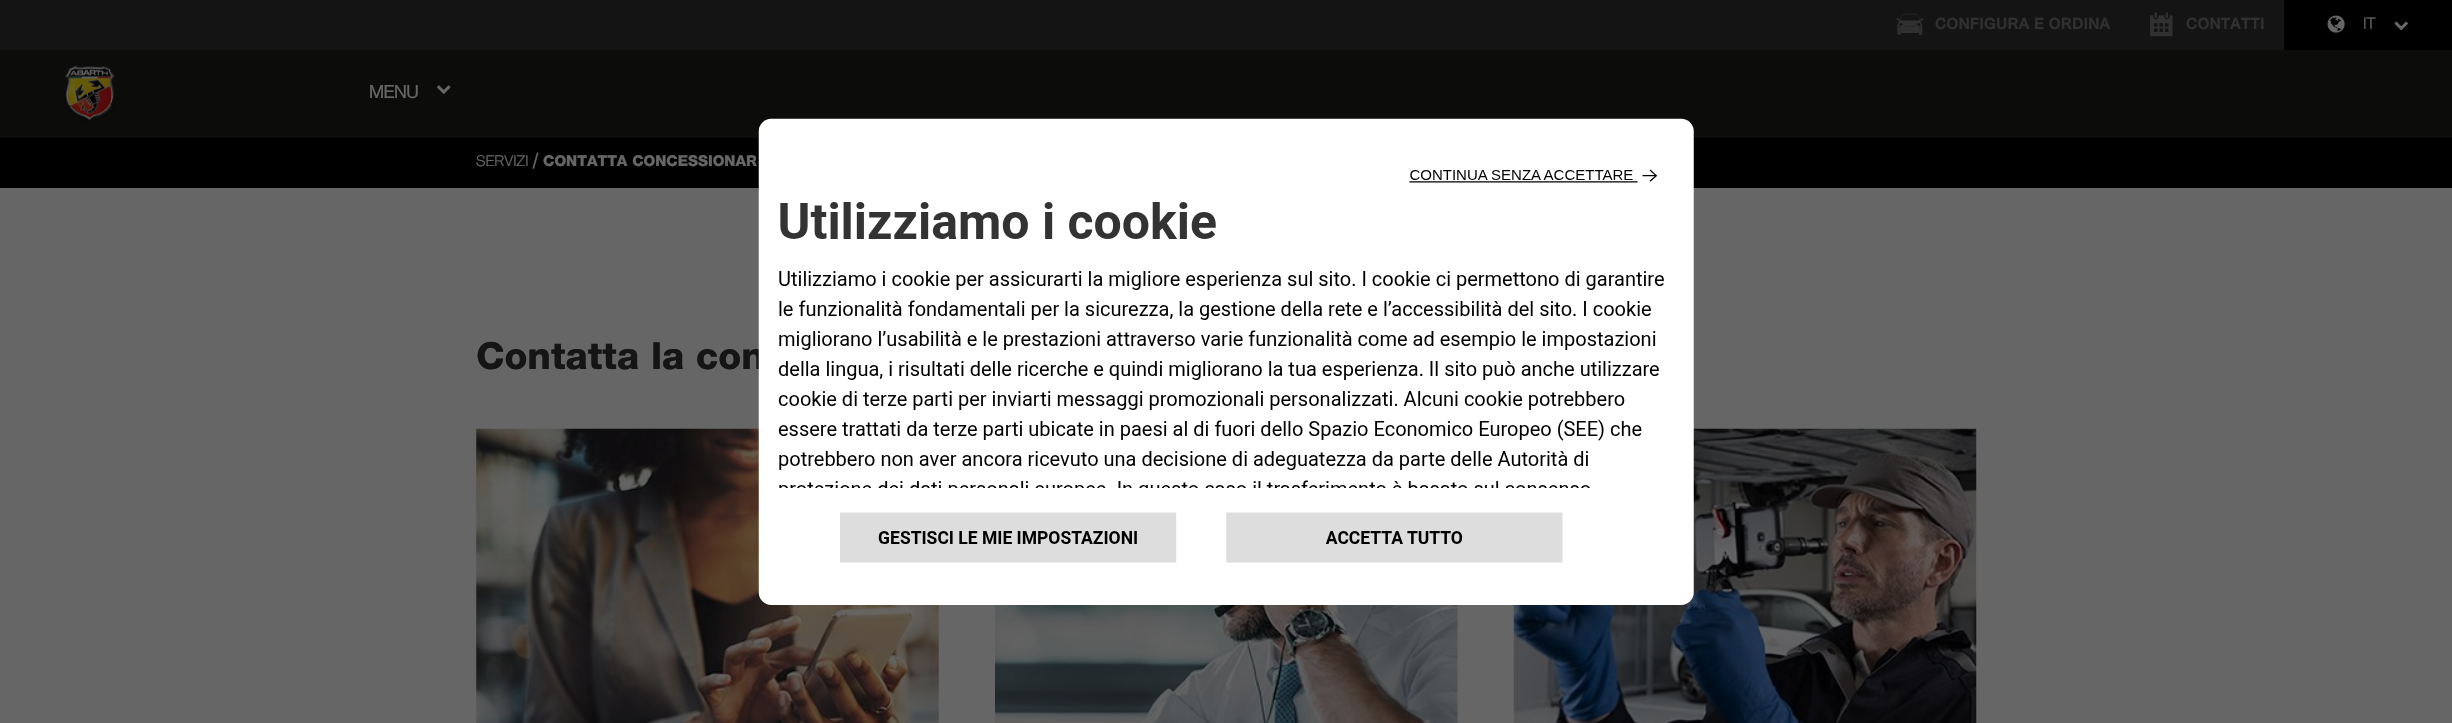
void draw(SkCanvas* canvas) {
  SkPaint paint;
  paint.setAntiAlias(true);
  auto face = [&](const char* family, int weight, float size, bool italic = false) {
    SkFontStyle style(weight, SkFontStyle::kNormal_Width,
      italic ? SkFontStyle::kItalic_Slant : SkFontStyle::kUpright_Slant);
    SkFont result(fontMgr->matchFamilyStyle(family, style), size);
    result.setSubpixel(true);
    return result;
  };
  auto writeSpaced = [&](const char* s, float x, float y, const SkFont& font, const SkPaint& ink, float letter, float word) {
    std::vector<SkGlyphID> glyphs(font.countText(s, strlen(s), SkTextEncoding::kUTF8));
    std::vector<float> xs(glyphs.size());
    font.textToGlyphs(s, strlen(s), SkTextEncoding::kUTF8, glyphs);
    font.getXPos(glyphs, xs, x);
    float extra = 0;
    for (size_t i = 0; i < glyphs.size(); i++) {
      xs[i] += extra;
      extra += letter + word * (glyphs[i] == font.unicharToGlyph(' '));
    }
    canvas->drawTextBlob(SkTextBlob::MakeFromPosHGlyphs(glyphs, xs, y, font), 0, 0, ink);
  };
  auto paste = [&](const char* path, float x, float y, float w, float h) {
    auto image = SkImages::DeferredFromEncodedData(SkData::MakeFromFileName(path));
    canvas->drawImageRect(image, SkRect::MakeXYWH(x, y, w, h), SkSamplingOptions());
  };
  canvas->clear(0xffffffff);
  paint.setColor(0xff1d1c1a);
  canvas->drawRect(SkRect::MakeXYWH(0, 50, 2452, 88), paint);
  paint.setColor(0xff303030);
  canvas->drawRect(SkRect::MakeXYWH(0, 0, 2284, 50), paint);
  paste("img/2.png", 1896, 13, 28, 22);
  paste("img/3.png", 2150, 12, 23, 25);
  paint.setColor(0xff000000);
  canvas->drawRect(SkRect::MakeXYWH(2284, 0, 168, 50), paint);
  paste("img/4.png", 2327, 15, 18, 18);
  paste("img/5.png", 2394, 21, 14, 10);
  paste("img/6.png", 64, 65, 52, 57);
  paste("img/7.png", 437, 85, 14, 9);
  canvas->drawRect(SkRect::MakeXYWH(0, 138, 2452, 50), paint);
  paste("img/8.png", 476, 428, 463, 295);
  paste("img/9.png", 995, 605, 463, 118);
  paste("img/10.png", 1513, 428, 464, 295);
  auto f0 = face("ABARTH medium", 700, 15);
  paint.setColor(0xff787878);
  writeSpaced("CONFIGURA E ORDINA", 1935, 29, f0, paint, 0.6f, 0);
  writeSpaced("CONTATTI", 2186, 29, f0, paint, 0.6f, 0);
  auto f1 = face("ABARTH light", 300, 16);
  paint.setColor(0xffffffff);
  canvas->drawString("IT", 2363, 29, f1, paint);
  auto f2 = face("ABARTH light", 700, 17.5f);
  canvas->drawString("MENU", 369, 98, f2, paint);
  auto f3 = face("ABARTH light", 300, 15);
  canvas->drawString("SERVIZI", 476, 166, f3, paint);
  auto f4 = face("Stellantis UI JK", 400, 20);
  canvas->drawString("/", 533, 166, f4, paint);
  auto f5 = face("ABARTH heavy", 900, 15);
  canvas->drawString("CONTATTA CONCESSIONAR", 543, 166, f5, paint);
  auto f6 = face("ABARTH heavy", 900, 37.5f);
  paint.setColor(0xff333333);
  canvas->drawString("Contatta la con", 476, 369, f6, paint);
  paste("img/1.png", 0, 0, 2452, 723);
}
